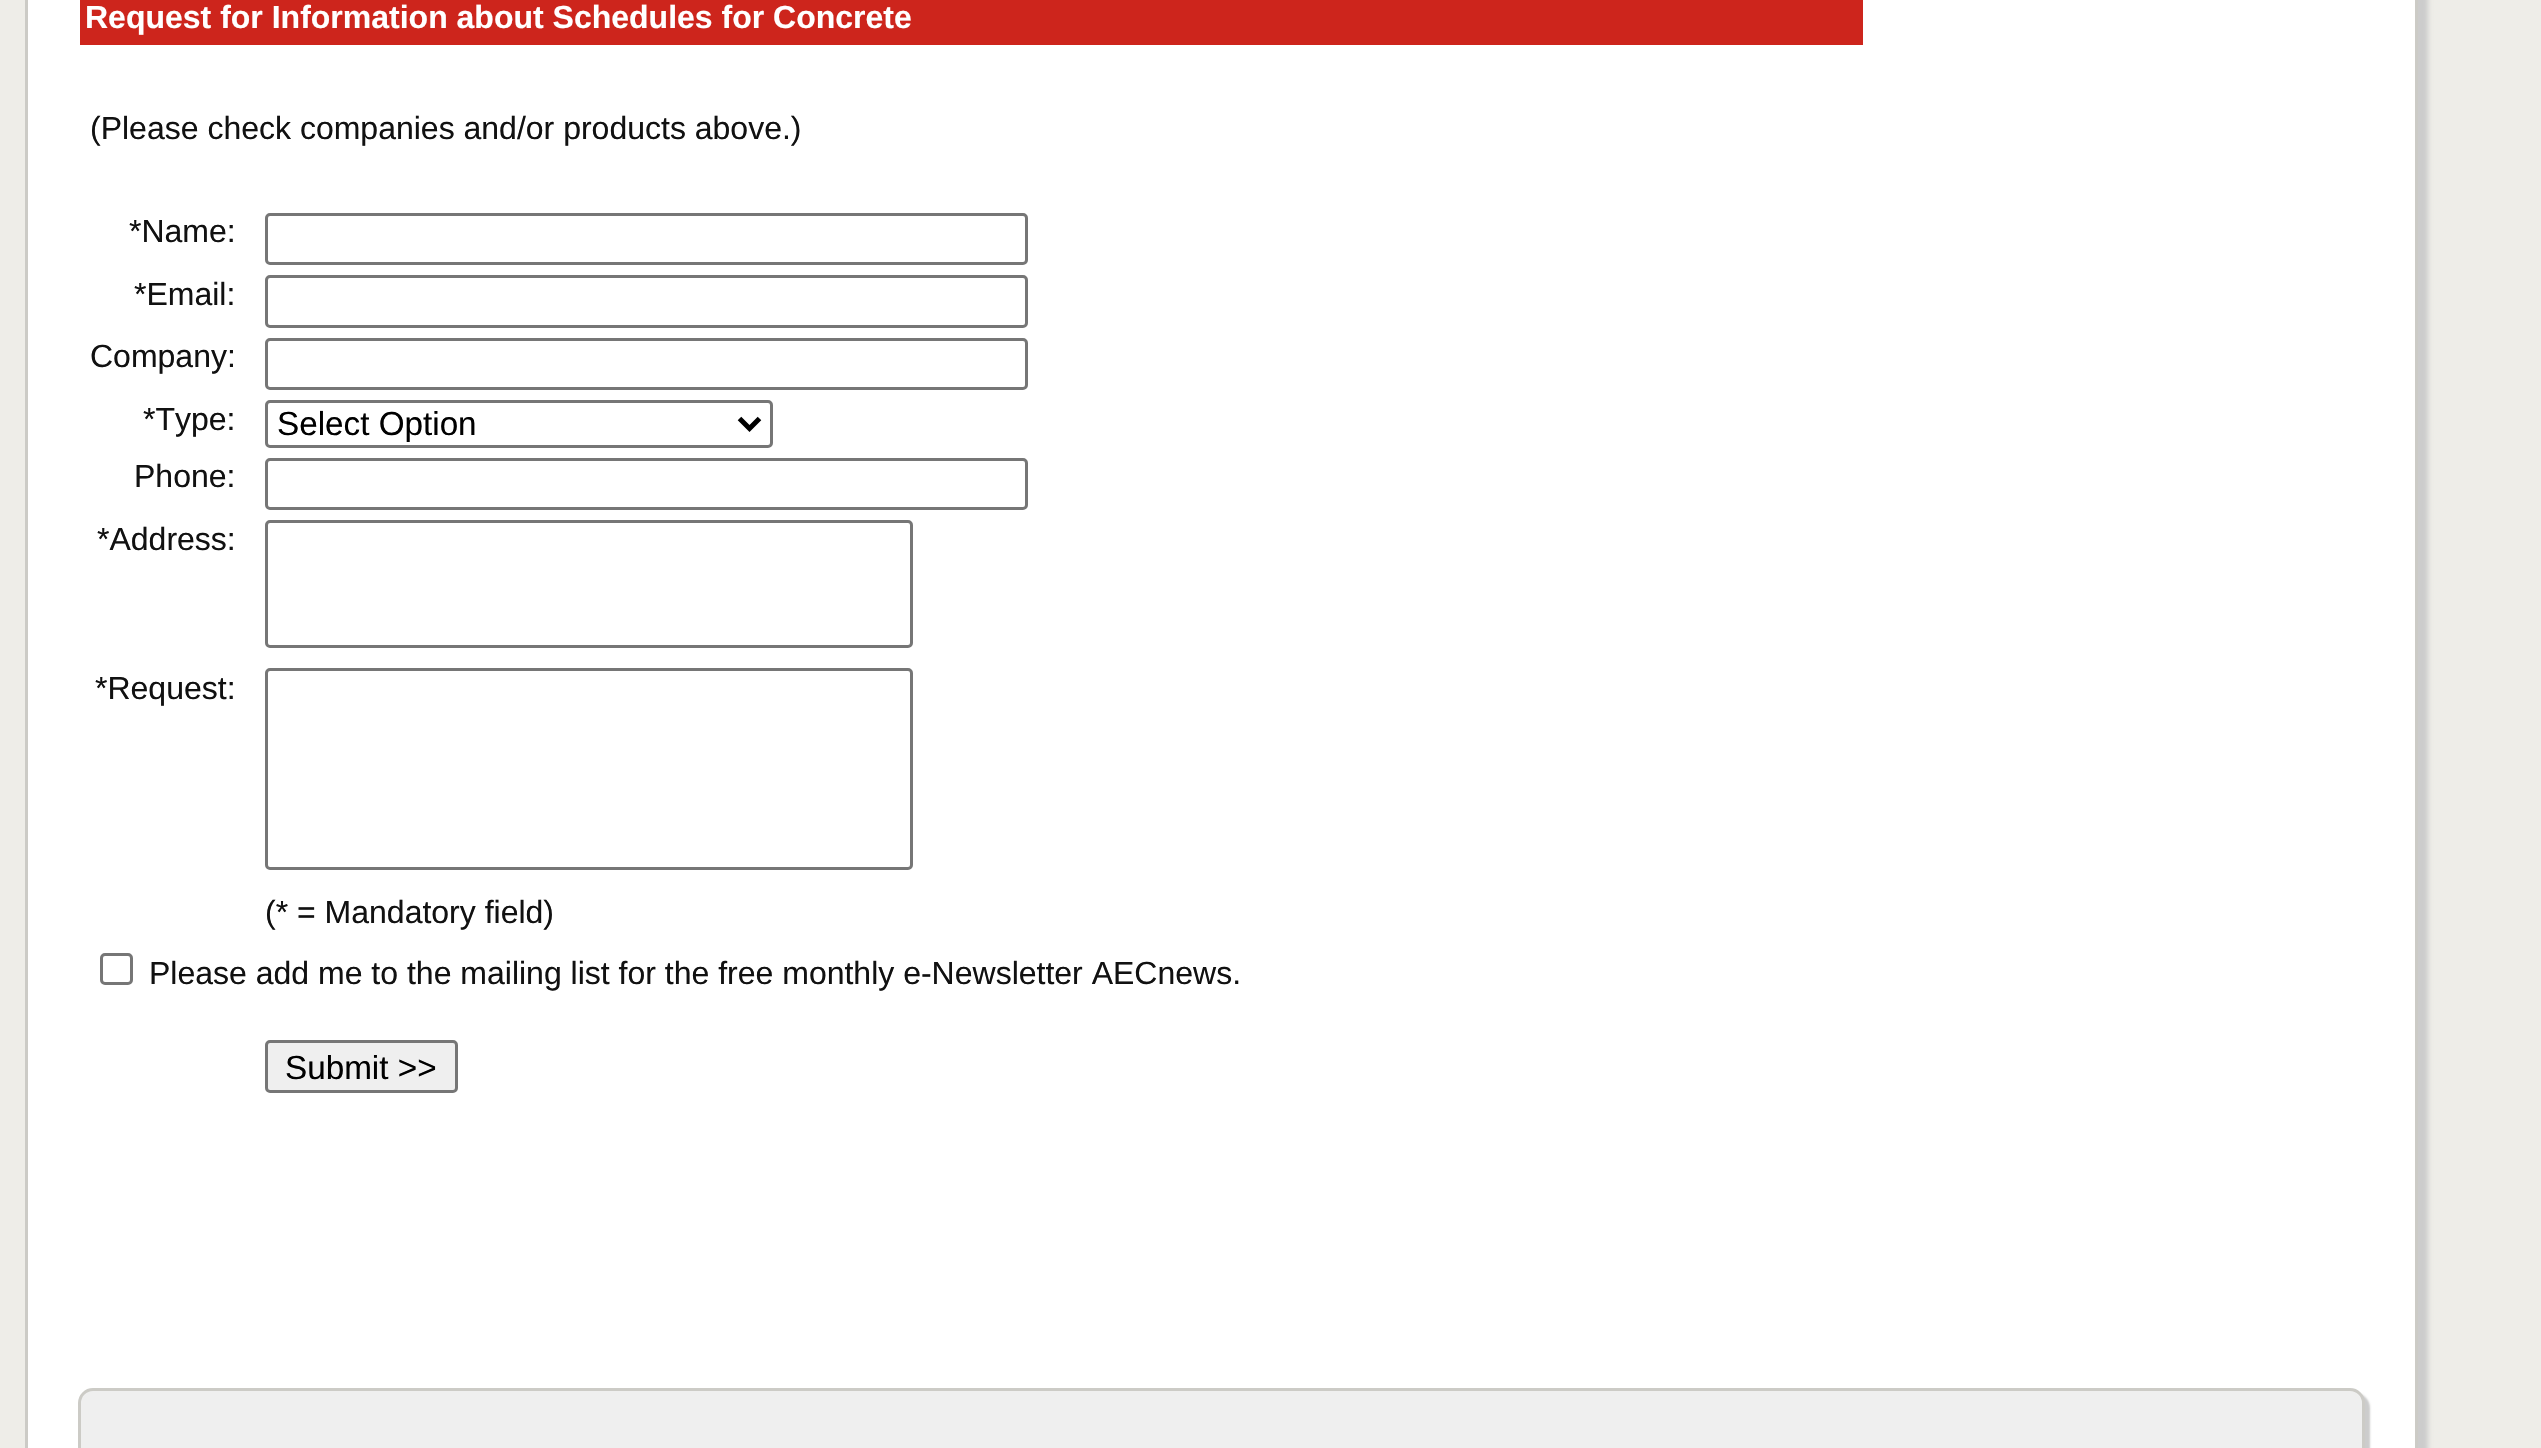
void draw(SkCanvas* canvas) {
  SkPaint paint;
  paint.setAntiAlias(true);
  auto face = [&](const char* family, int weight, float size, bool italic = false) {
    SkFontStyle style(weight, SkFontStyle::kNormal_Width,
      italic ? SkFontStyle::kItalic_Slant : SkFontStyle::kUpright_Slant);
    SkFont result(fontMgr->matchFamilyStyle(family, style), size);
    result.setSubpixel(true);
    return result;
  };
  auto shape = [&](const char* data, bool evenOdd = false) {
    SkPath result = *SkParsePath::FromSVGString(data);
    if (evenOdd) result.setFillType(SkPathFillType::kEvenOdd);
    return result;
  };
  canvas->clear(0xffeeede8);
  paint.setColor(0xffcccccc);
  paint.setMaskFilter(SkMaskFilter::MakeBlur(kNormal_SkBlurStyle, 2.5f));
  canvas->drawRoundRect(SkRect::MakeXYWH(35, -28, 2393, 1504), 20, 20, paint);
  paint.setMaskFilter(nullptr);
  paint.setColor(0xffffffff);
  canvas->drawRect(SkRect::MakeXYWH(26.5f, -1.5f, 2390, 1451), paint);
  paint.setStroke(true);
  paint.setStrokeWidth(3);
  paint.setColor(0xffcccbc6);
  canvas->drawRect(SkRect::MakeXYWH(26.5f, -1.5f, 2390, 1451), paint);
  paint.setStroke(false);
  paint.setColor(0xffcd251c);
  canvas->drawRect(SkRect::MakeXYWH(80, 0, 1783, 45), paint);
  paint.setStroke(true);
  paint.setColor(0xff767676);
  canvas->drawRoundRect(SkRect::MakeXYWH(266.5f, 214.5f, 760, 49), 3.5f, 3.5f, paint);
  canvas->drawRoundRect(SkRect::MakeXYWH(266.5f, 276.5f, 760, 50), 3.5f, 3.5f, paint);
  canvas->drawRoundRect(SkRect::MakeXYWH(266.5f, 339.5f, 760, 49), 3.5f, 3.5f, paint);
  canvas->drawRoundRect(SkRect::MakeXYWH(266.5f, 401.5f, 505, 45), 3.5f, 3.5f, paint);
  paint.setStrokeWidth(5);
  paint.setColor(0xff000000);
  canvas->drawPath(shape("M739.5 418.5L749.5 428.5L759.5 418.5"), paint);
  paint.setStrokeWidth(3);
  paint.setColor(0xff767676);
  canvas->drawRoundRect(SkRect::MakeXYWH(266.5f, 459.5f, 760, 49), 3.5f, 3.5f, paint);
  canvas->drawRoundRect(SkRect::MakeXYWH(266.5f, 521.5f, 645, 125), 3.5f, 3.5f, paint);
  canvas->drawRoundRect(SkRect::MakeXYWH(266.5f, 669.5f, 645, 199), 3.5f, 3.5f, paint);
  canvas->drawRoundRect(SkRect::MakeXYWH(101.5f, 954.5f, 30, 29), 3.5f, 3.5f, paint);
  paint.setStroke(false);
  paint.setColor(0xffefefef);
  canvas->drawRoundRect(SkRect::MakeXYWH(266.5f, 1041.5f, 190, 50), 3.5f, 3.5f, paint);
  paint.setStroke(true);
  paint.setColor(0xff767676);
  canvas->drawRoundRect(SkRect::MakeXYWH(266.5f, 1041.5f, 190, 50), 3.5f, 3.5f, paint);
  paint.setStroke(false);
  paint.setColor(0xffcccccc);
  paint.setMaskFilter(SkMaskFilter::MakeBlur(kNormal_SkBlurStyle, 1));
  canvas->drawRoundRect(SkRect::MakeXYWH(83, 1393, 2287, 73), 15, 15, paint);
  paint.setMaskFilter(nullptr);
  paint.setColor(0xffefefef);
  canvas->drawRoundRect(SkRect::MakeXYWH(79.5f, 1389.5f, 2284, 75), 13.5f, 13.5f, paint);
  paint.setStroke(true);
  paint.setColor(0xffcccbc6);
  canvas->drawRoundRect(SkRect::MakeXYWH(79.5f, 1389.5f, 2284, 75), 13.5f, 13.5f, paint);
  auto f0 = face("Liberation Sans", 700, 32);
  paint.setStroke(false);
  paint.setColor(0xffffffff);
  canvas->drawString("Request for Information about Schedules for Concrete", 85, 28, f0, paint);
  auto f1 = face("Liberation Sans", 400, 32);
  paint.setColor(0xff111111);
  {
    const struct { const char* s; float x, y; } items[] = {
      {"(Please check companies and/or products above.)", 90, 139},
      {"*Name:", 129, 242},
      {"*Email:", 134, 305},
      {"Company:", 90, 367},
      {"*Type:", 143, 430},
    };
    for (auto [s, x, y] : items) {
      canvas->drawString(s, x, y, f1, paint);
    }
  }
  auto f2 = face("Liberation Sans", 400, 33.25f);
  paint.setColor(0xff000000);
  canvas->drawString("Select Option", 277, 435, f2, paint);
  paint.setColor(0xff111111);
  {
    const struct { const char* s; float x, y; } items[] = {
      {"Phone:", 134, 487},
      {"*Address:", 97, 550},
      {"*Request:", 95, 699},
      {"(* = Mandatory field)", 265, 923},
      {"Please add me to the mailing list for the free monthly e-Newsletter AECnews.", 149, 984},
    };
    for (auto [s, x, y] : items) {
      canvas->drawString(s, x, y, f1, paint);
    }
  }
  paint.setColor(0xff000000);
  canvas->drawString("Submit >>", 285, 1079, f2, paint);
}
